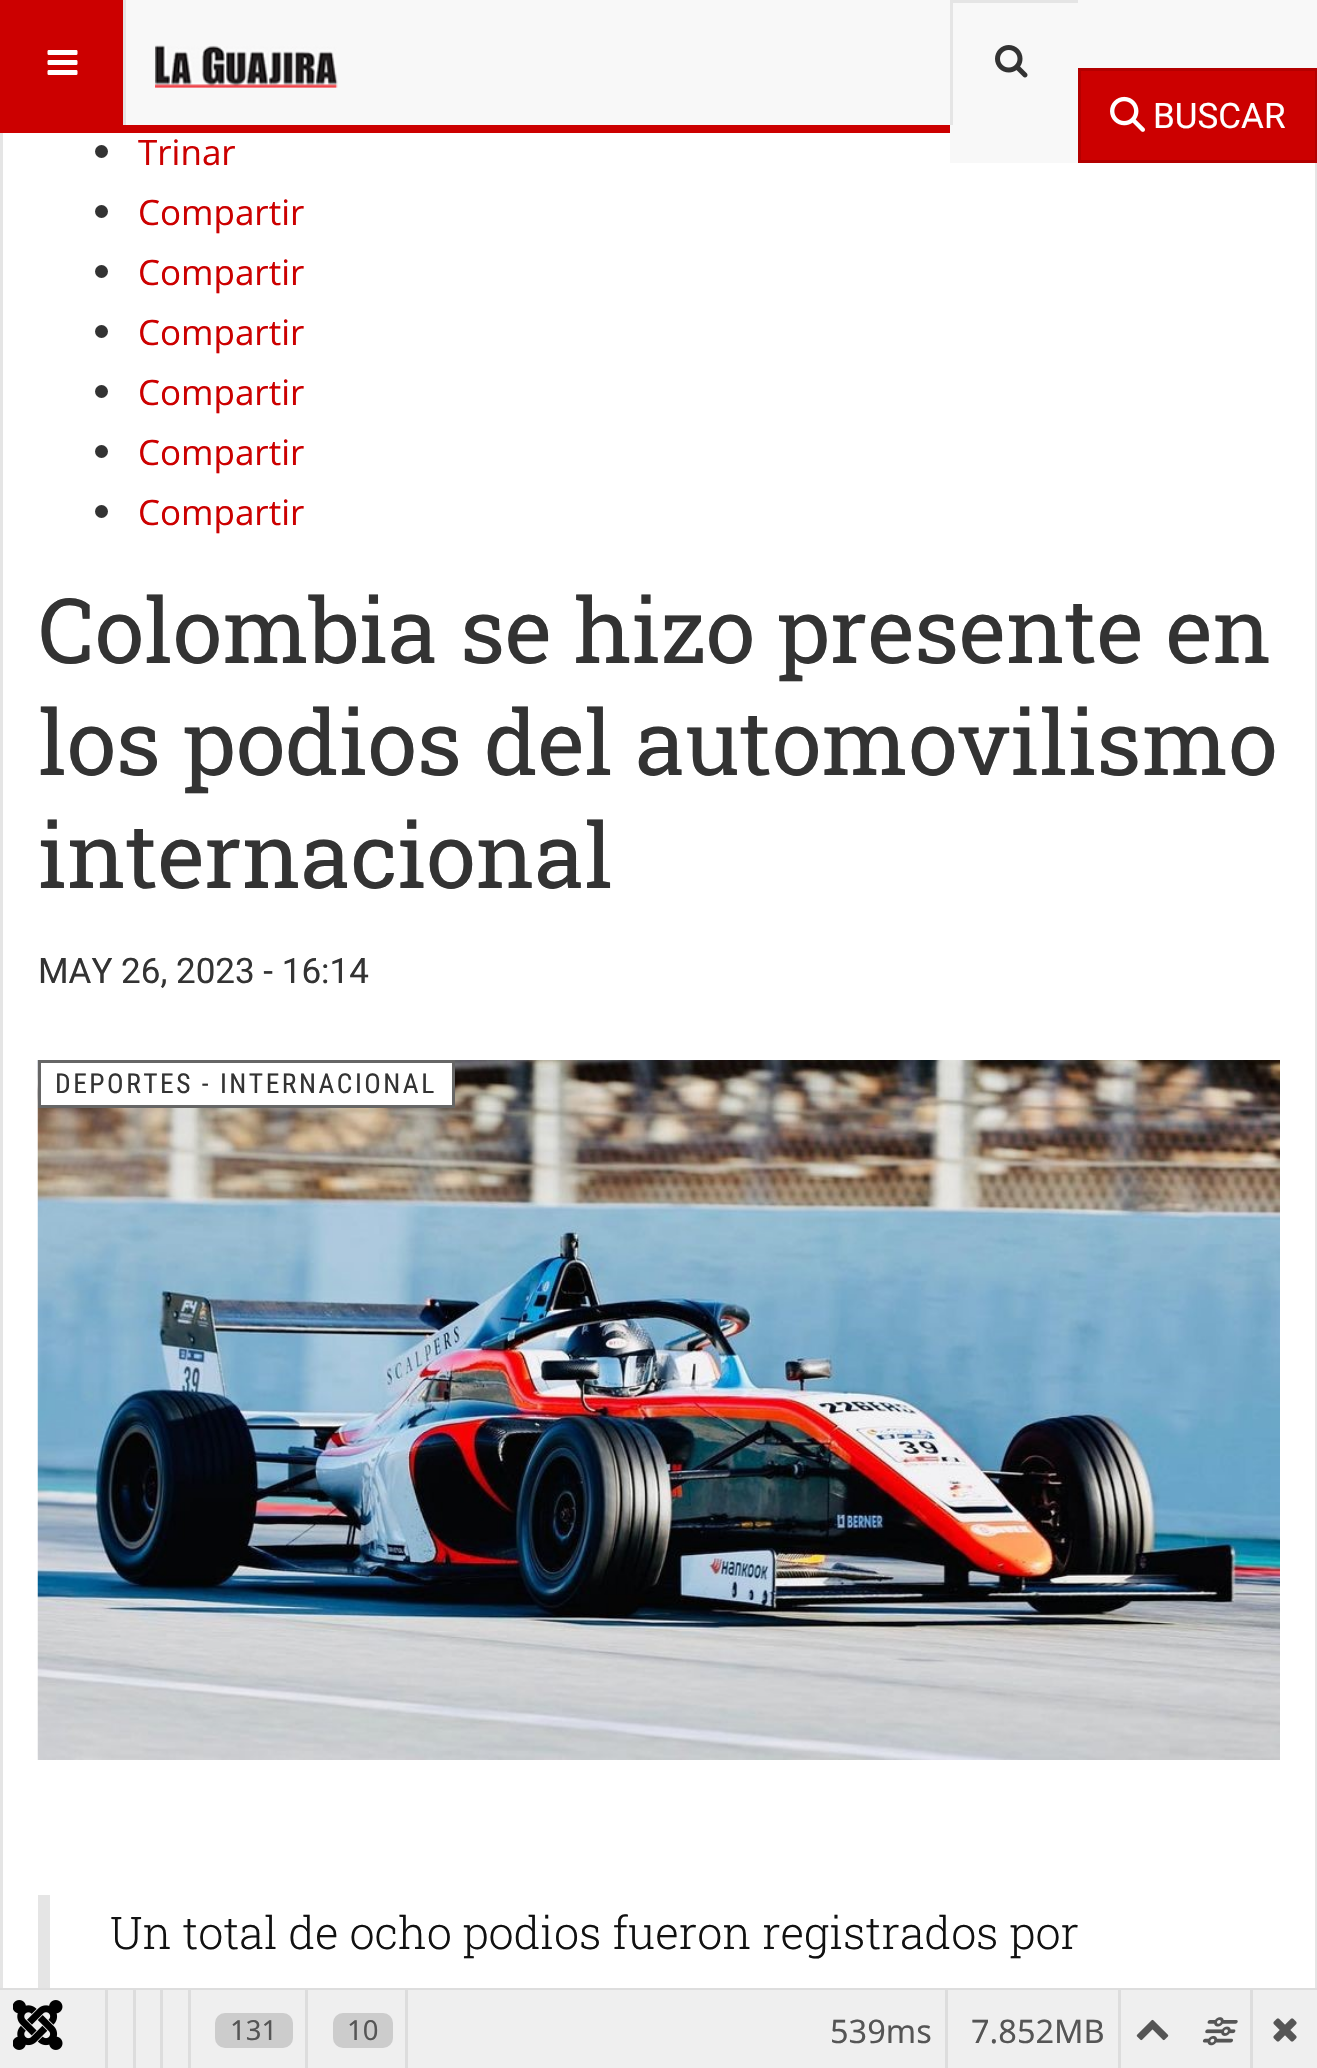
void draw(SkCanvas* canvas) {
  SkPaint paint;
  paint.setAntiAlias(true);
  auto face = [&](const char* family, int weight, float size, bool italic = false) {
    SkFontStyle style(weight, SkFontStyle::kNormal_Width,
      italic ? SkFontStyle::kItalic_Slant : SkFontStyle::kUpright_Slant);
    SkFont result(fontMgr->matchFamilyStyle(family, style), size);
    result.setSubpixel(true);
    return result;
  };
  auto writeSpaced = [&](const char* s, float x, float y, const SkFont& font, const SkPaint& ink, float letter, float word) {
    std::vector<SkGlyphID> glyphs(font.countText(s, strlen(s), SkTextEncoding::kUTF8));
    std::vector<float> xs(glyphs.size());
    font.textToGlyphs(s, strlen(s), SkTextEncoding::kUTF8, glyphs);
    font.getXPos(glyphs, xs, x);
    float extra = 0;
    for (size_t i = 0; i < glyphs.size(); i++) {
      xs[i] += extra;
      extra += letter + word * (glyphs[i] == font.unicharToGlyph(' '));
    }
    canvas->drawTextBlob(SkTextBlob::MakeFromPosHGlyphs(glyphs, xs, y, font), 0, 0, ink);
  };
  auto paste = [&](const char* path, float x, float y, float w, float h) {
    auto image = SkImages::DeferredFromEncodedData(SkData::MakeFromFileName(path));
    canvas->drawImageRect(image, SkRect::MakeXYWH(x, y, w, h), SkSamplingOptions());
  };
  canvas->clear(0xffffffff);
  paint.setStroke(true);
  paint.setStrokeWidth(3);
  paint.setColor(0xffe5e5e5);
  canvas->drawRect(SkRect::MakeXYWH(1.5f, -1.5f, 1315, 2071), paint);
  paint.setStroke(false);
  {
    const struct { float x, y, w, h; SkColor color; } items[] = {
      {126, 0, 824, 125, 0xfff8f8f8},
      {0, 125, 950, 8, 0xffcc0000},
      {0, 0, 123, 125, 0xffcc0000},
      {123, 0, 3, 125, 0xffe5e5e5},
    };
    for (auto [x, y, w, h, color] : items) {
      paint.setColor(color);
      canvas->drawRect(SkRect::MakeXYWH(x, y, w, h), paint);
    }
  }
  paste("img/1.png", 47, 50, 31, 25);
  paste("img/2.png", 155, 45, 183, 43);
  paint.setColor(0xfff8f8f8);
  canvas->drawRect(SkRect::MakeXYWH(950, 0, 367, 163), paint);
  paste("img/3.png", 995, 45, 33, 33);
  paint.setColor(0xffe5e5e5);
  canvas->drawRect(SkRect::MakeXYWH(953, 0, 125, 3), paint);
  canvas->drawRect(SkRect::MakeXYWH(950, 0, 3, 125), paint);
  paint.setColor(0xffcc0000);
  canvas->drawRect(SkRect::MakeXYWH(1079.5f, 69.5f, 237, 92), paint);
  paint.setStroke(true);
  paint.setColor(0xffb30000);
  canvas->drawRect(SkRect::MakeXYWH(1079.5f, 69.5f, 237, 92), paint);
  paste("img/4.png", 1110, 96, 35, 36);
  paint.setStroke(false);
  paint.setColor(0xff333333);
  canvas->drawCircle(101.5f, 151.5f, 6.5f, paint);
  canvas->drawCircle(101.5f, 211.5f, 6.5f, paint);
  canvas->drawCircle(101.5f, 271.5f, 6.5f, paint);
  canvas->drawCircle(101.5f, 331.5f, 6.5f, paint);
  canvas->drawCircle(101.5f, 391.5f, 6.5f, paint);
  canvas->drawCircle(101.5f, 451.5f, 6.5f, paint);
  canvas->drawCircle(101.5f, 511.5f, 6.5f, paint);
  paste("img/5.png", 37, 1060, 1243, 700);
  paint.setColor(0xffffffff);
  canvas->drawRect(SkRect::MakeXYWH(39.5f, 1061.5f, 414, 45), paint);
  paint.setStroke(true);
  paint.setColor(0xff666666);
  canvas->drawRect(SkRect::MakeXYWH(39.5f, 1061.5f, 414, 45), paint);
  paint.setStroke(false);
  {
    const struct { float x, y, w, h; SkColor color; } items[] = {
      {38, 1895, 12, 93, 0xffe5e5e5},
      {0, 1988, 1317, 2, 0xffdddddd},
      {0, 1990, 1317, 78, 0xffefefef},
    };
    for (auto [x, y, w, h, color] : items) {
      paint.setColor(color);
      canvas->drawRect(SkRect::MakeXYWH(x, y, w, h), paint);
    }
  }
  paste("img/6.png", 13, 2000, 50, 50);
  {
    const struct { float x, y, w, h; SkColor color; } items[] = {
      {105, 1990, 3, 78, 0xffdddddd},
      {133, 1990, 3, 78, 0xffdddddd},
      {160, 1990, 3, 78, 0xffdddddd},
      {188, 1990, 3, 78, 0xffdddddd},
      {305, 1990, 3, 78, 0xffdddddd},
    };
    for (auto [x, y, w, h, color] : items) {
      paint.setColor(color);
      canvas->drawRect(SkRect::MakeXYWH(x, y, w, h), paint);
    }
  }
  paint.setColor(0xffcccccc);
  canvas->drawRoundRect(SkRect::MakeXYWH(215, 2013, 78, 35), 10, 10, paint);
  paint.setColor(0xffdddddd);
  canvas->drawRect(SkRect::MakeXYWH(405, 1990, 3, 78), paint);
  paint.setColor(0xffcccccc);
  canvas->drawRoundRect(SkRect::MakeXYWH(333, 2013, 60, 35), 10, 10, paint);
  paint.setColor(0xffdddddd);
  canvas->drawRect(SkRect::MakeXYWH(945, 1990, 3, 78), paint);
  canvas->drawRect(SkRect::MakeXYWH(1118, 1990, 3, 78), paint);
  paste("img/7.png", 1136, 2019, 33, 22);
  canvas->drawRect(SkRect::MakeXYWH(1250, 1990, 3, 78), paint);
  paste("img/8.png", 1202, 2017, 36, 29);
  paste("img/9.png", 1273, 2018, 24, 24);
  auto f0 = face("Roboto", 400, 35);
  paint.setColor(0xffffffff);
  canvas->drawString("BUSCAR", 1153, 128, f0, paint);
  auto f1 = face("Open Sans", 400, 35);
  paint.setColor(0xffcc0000);
  {
    const struct { const char* s; float x, y; } items[] = {
      {"Trinar", 138, 165},
      {"Compartir", 138, 225},
      {"Compartir", 138, 285},
      {"Compartir", 138, 345},
      {"Compartir", 138, 405},
      {"Compartir", 138, 465},
      {"Compartir", 138, 525},
    };
    for (auto [s, x, y] : items) {
      canvas->drawString(s, x, y, f1, paint);
    }
  }
  auto f2 = face("Roboto Slab", 400, 90);
  paint.setColor(0xff333333);
  {
    const struct { const char* s; float x, y; } items[] = {
      {"Colombia se hizo presente en", 38, 663},
      {"los podios del automovilismo", 38, 775},
      {"internacional", 38, 888},
    };
    for (auto [s, x, y] : items) {
      canvas->drawString(s, x, y, f2, paint);
    }
  }
  canvas->drawString("MAY 26, 2023 - 16:14", 38, 983, f0, paint);
  auto f3 = face("Roboto Condensed", 400, 27.5f);
  writeSpaced("DEPORTES - INTERNACIONAL", 55, 1093, f3, paint, 2.5f, 0);
  auto f4 = face("Roboto Slab", 300, 45);
  paint.setColor(0xff111111);
  canvas->drawString("Un total de ocho podios fueron registrados por", 110, 1949, f4, paint);
  auto f5 = face("Noto Sans", 400, 27.5f);
  paint.setColor(0xff555555);
  canvas->drawString("131", 230, 2040, f5, paint);
  canvas->drawString("10", 347, 2040, f5, paint);
  auto f6 = face("Noto Sans", 400, 32.5f);
  canvas->drawString("539ms", 830, 2043, f6, paint);
  canvas->drawString("7.852MB", 971, 2043, f6, paint);
}
